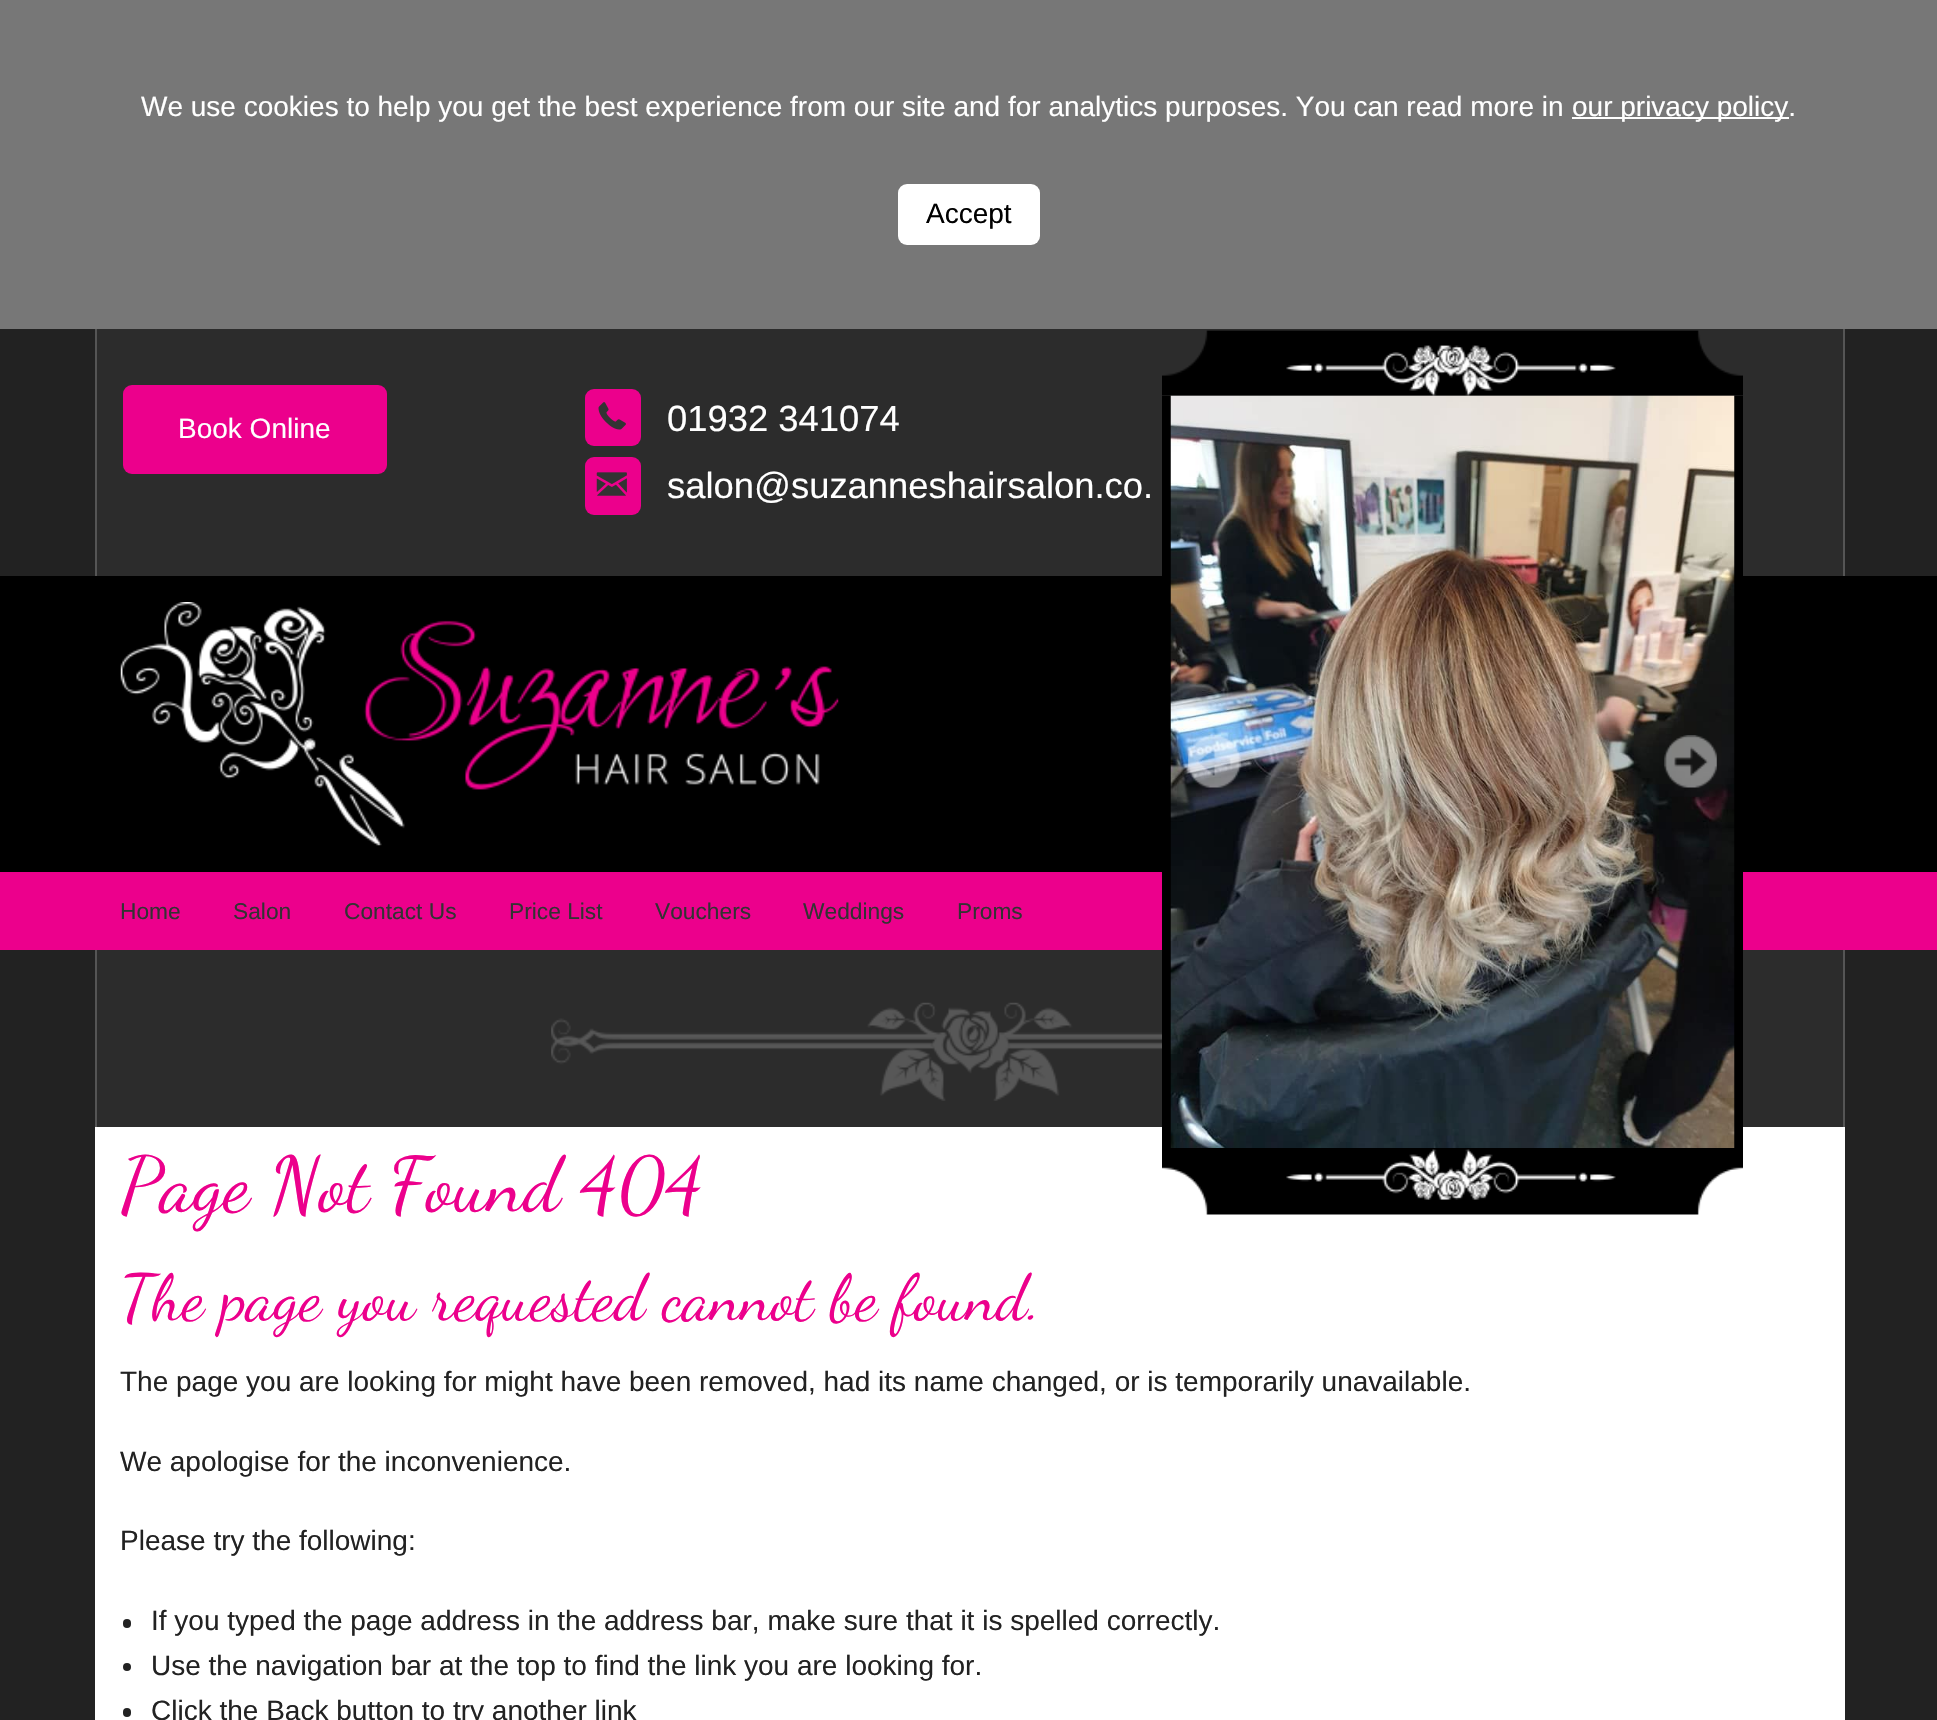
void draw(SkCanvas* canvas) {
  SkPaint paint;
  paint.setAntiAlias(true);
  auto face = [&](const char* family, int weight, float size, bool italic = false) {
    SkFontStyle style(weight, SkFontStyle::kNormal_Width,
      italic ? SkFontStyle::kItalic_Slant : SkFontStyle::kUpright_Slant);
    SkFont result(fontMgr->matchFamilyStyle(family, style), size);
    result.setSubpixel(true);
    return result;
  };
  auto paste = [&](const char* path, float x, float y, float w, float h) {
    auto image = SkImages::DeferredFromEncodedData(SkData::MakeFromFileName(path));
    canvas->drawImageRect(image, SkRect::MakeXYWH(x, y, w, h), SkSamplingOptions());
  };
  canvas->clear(0xff222222);
  paint.setColor(0xff777777);
  canvas->drawRect(SkRect::MakeXYWH(0, 0, 1937, 329), paint);
  paint.setColor(0xffffffff);
  canvas->drawRect(SkRect::MakeXYWH(1572, 117, 217, 2), paint);
  canvas->drawRoundRect(SkRect::MakeXYWH(898, 184, 142, 61), 9, 9, paint);
  {
    const struct { float x, y, w, h; SkColor color; } items[] = {
      {97, 329, 1746, 247, 0xff2c2c2c},
      {1843, 329, 2, 247, 0xff555555},
      {95, 329, 2, 247, 0xff555555},
    };
    for (auto [x, y, w, h, color] : items) {
      paint.setColor(color);
      canvas->drawRect(SkRect::MakeXYWH(x, y, w, h), paint);
    }
  }
  paint.setColor(0xffec008c);
  canvas->drawRoundRect(SkRect::MakeXYWH(123, 385, 264, 89), 9, 9, paint);
  canvas->drawRoundRect(SkRect::MakeXYWH(585, 389, 56, 57), 9, 9, paint);
  paste("img/1.png", 598, 402, 28, 28);
  canvas->drawRoundRect(SkRect::MakeXYWH(585, 457, 56, 58), 9, 9, paint);
  paste("img/2.png", 596, 472, 31, 24);
  paste("img/3.png", 1162, 330, 581, 66);
  {
    const struct { float x, y, w, h; SkColor color; } items[] = {
      {0, 576, 1937, 296, 0xff000000},
      {0, 872, 1937, 78, 0xffec008c},
      {97, 950, 1746, 177, 0xff2c2c2c},
      {95, 1127, 1750, 593, 0xffffffff},
      {1162, 396, 581, 752, 0xff000000},
    };
    for (auto [x, y, w, h, color] : items) {
      paint.setColor(color);
      canvas->drawRect(SkRect::MakeXYWH(x, y, w, h), paint);
    }
  }
  paste("img/4.png", 1170, 395, 565, 753);
  paste("img/5.png", 1188, 735, 53, 53);
  paste("img/6.png", 1664, 735, 53, 53);
  paste("img/7.png", 1162, 1148, 581, 67);
  paste("img/8.png", 120, 602, 719, 244);
  paint.setColor(0xff555555);
  canvas->drawRect(SkRect::MakeXYWH(1843, 950, 2, 177), paint);
  canvas->drawRect(SkRect::MakeXYWH(95, 950, 2, 177), paint);
  paste("img/9.png", 551, 1002, 611, 99);
  paint.setColor(0xff222222);
  canvas->drawRoundRect(SkRect::MakeXYWH(123, 1619, 8, 9), 4, 4, paint);
  canvas->drawCircle(127, 1667, 4, paint);
  canvas->drawRoundRect(SkRect::MakeXYWH(123, 1708, 8, 9), 4, 4, paint);
  auto f0 = face("Liberation Sans", 400, 28);
  paint.setColor(0xffffffff);
  canvas->drawString("We use cookies to help you get the best experience from our site and for analytics purposes. You can read more in", 141, 116, f0, paint);
  canvas->drawString("our privacy policy.", 1572, 116, f0, paint);
  paint.setColor(0xff000000);
  canvas->drawString("Accept", 926, 223, f0, paint);
  paint.setColor(0xffffffff);
  canvas->drawString("Book Online", 178, 438, f0, paint);
  auto f1 = face("Liberation Sans", 400, 36.4f);
  canvas->drawString("01932 341074", 667, 431, f1, paint);
  canvas->drawString("salon@suzanneshairsalon.co.", 667, 498, f1, paint);
  auto f2 = face("Liberation Sans", 400, 22.75f);
  paint.setColor(0xff333333);
  {
    const struct { const char* s; float x, y; } items[] = {
      {"Home", 120, 919},
      {"Salon", 233, 919},
      {"Contact Us", 344, 919},
      {"Price List", 509, 919},
      {"Vouchers", 655, 919},
      {"Weddings", 803, 919},
      {"Proms", 957, 919},
    };
    for (auto [s, x, y] : items) {
      canvas->drawString(s, x, y, f2, paint);
    }
  }
  auto f3 = face("Dancing Script", 400, 77);
  paint.setColor(0xffec008c);
  canvas->drawString("Page Not Found 404", 120, 1210, f3, paint);
  auto f4 = face("Dancing Script", 400, 64.75f);
  canvas->drawString("The page you requested cannot be found.", 120, 1319, f4, paint);
  paint.setColor(0xff222222);
  {
    const struct { const char* s; float x, y; } items[] = {
      {"The page you are looking for might have been removed, had its name changed, or is temporarily unavailable.", 120, 1391},
      {"We apologise for the inconvenience.", 120, 1471},
      {"Please try the following:", 120, 1550},
      {"If you typed the page address in the address bar, make sure that it is spelled correctly.", 151, 1630},
      {"Use the navigation bar at the top to find the link you are looking for.", 151, 1675},
      {"Click the Back button to try another link", 151, 1720},
    };
    for (auto [s, x, y] : items) {
      canvas->drawString(s, x, y, f0, paint);
    }
  }
}
